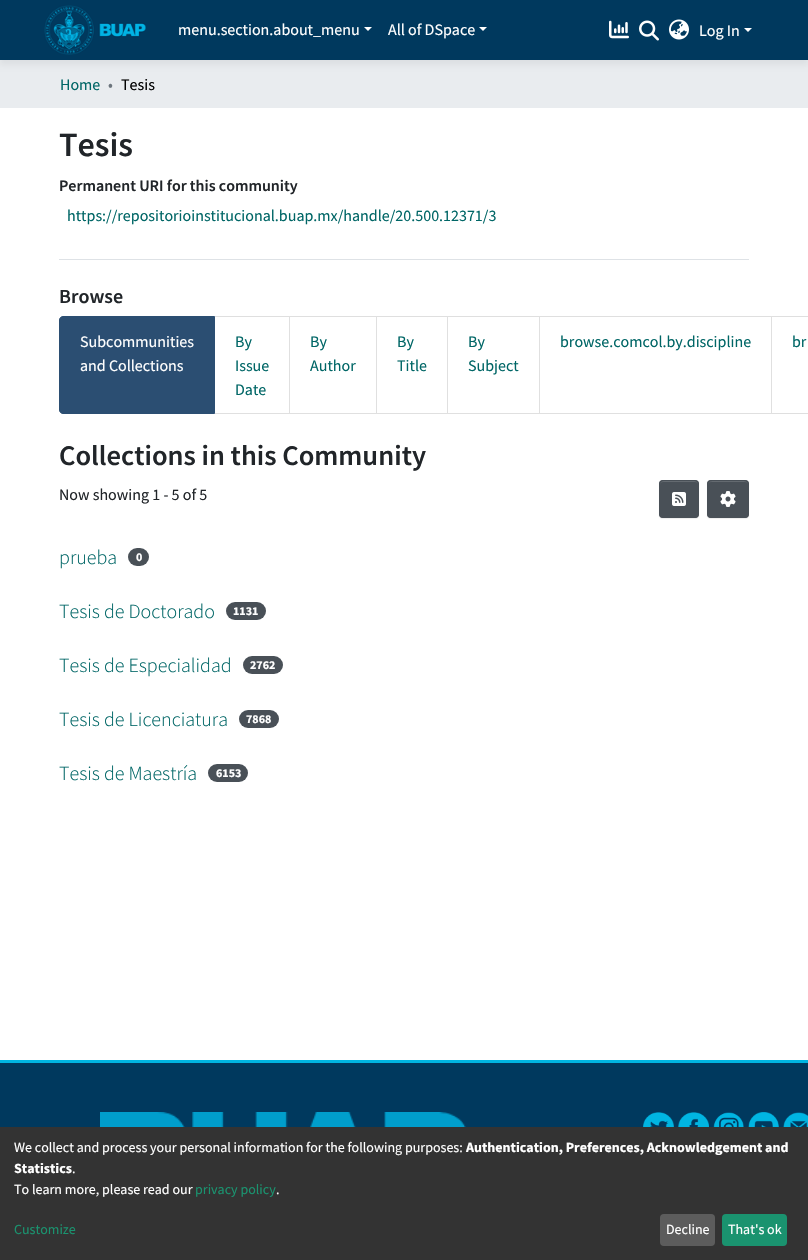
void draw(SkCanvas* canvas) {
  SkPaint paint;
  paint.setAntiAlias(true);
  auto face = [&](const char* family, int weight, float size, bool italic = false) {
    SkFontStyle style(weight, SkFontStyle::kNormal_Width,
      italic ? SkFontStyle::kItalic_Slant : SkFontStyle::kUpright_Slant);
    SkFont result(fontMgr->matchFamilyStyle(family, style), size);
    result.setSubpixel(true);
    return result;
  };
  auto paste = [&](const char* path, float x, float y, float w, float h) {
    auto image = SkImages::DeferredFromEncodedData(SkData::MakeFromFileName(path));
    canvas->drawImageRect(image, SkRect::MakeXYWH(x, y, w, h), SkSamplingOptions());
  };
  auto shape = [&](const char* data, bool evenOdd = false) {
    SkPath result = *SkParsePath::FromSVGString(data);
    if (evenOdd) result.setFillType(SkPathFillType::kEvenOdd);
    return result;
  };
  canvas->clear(0xffffffff);
  paint.setColor(0xffe9ecef);
  canvas->drawRect(SkRect::MakeXYWH(0, 60, 808, 48), paint);
  paint.setColor(0x0d000000);
  paint.setMaskFilter(SkMaskFilter::MakeBlur(kNormal_SkBlurStyle, 2.5f));
  canvas->drawRect(SkRect::MakeXYWH(0, 5, 808, 60), paint);
  paint.setMaskFilter(nullptr);
  paint.setColor(0xff00395e);
  canvas->drawRect(SkRect::MakeXYWH(0, 0, 808, 60), paint);
  paste("img/1.png", 44, 5, 102, 50);
  paint.setColor(0xffffffff);
  canvas->drawPath(shape("M364 27H372L368 31Z"), paint);
  canvas->drawPath(shape("M479 27H487L483 31Z"), paint);
  paste("img/2.png", 609, 20, 20, 19);
  paste("img/3.png", 639, 20, 20, 21);
  paste("img/4.png", 669, 19, 20, 21);
  canvas->drawPath(shape("M744 28H752L748 32Z"), paint);
  paint.setColor(0xffdee2e6);
  canvas->drawRect(SkRect::MakeXYWH(59, 259, 690, 1), paint);
  paint.setColor(0xff2b4e72);
  canvas->drawPath(shape("M63 316.5H214.5V413.5H63C61 413.5 59.5 412 59.5 410V320C59.5 318 61 316.5 63 316.5Z"), paint);
  paint.setStroke(true);
  paint.setStrokeWidth(1);
  canvas->drawPath(shape("M63 316.5H214.5V413.5H63C61 413.5 59.5 412 59.5 410V320C59.5 318 61 316.5 63 316.5Z"), paint);
  paint.setStroke(false);
  paint.setColor(0xffdfdfdf);
  canvas->drawPath(shape("M215 316H290L289 317H215Z"), paint);
  paint.setColor(0x1f000000);
  canvas->drawPath(shape("M290 316V414L289 413V317Z"), paint);
  canvas->drawPath(shape("M290 414H215V413H289Z"), paint);
  paint.setColor(0xffdfdfdf);
  canvas->drawPath(shape("M290 316H377L376 317H290Z"), paint);
  paint.setColor(0x1f000000);
  canvas->drawPath(shape("M377 316V414L376 413V317Z"), paint);
  canvas->drawPath(shape("M377 414H290V413H376Z"), paint);
  paint.setColor(0xffdfdfdf);
  canvas->drawPath(shape("M377 316H448L447 317H377Z"), paint);
  paint.setColor(0x1f000000);
  canvas->drawPath(shape("M448 316V414L447 413V317Z"), paint);
  canvas->drawPath(shape("M448 414H377V413H447Z"), paint);
  paint.setColor(0xffdfdfdf);
  canvas->drawPath(shape("M448 316H540L539 317H448Z"), paint);
  paint.setColor(0x1f000000);
  canvas->drawPath(shape("M540 316V414L539 413V317Z"), paint);
  canvas->drawPath(shape("M540 414H448V413H539Z"), paint);
  paint.setColor(0xffdfdfdf);
  canvas->drawPath(shape("M540 316H772L771 317H540Z"), paint);
  paint.setColor(0x1f000000);
  canvas->drawPath(shape("M772 316V414L771 413V317Z"), paint);
  canvas->drawPath(shape("M772 414H540V413H771Z"), paint);
  paint.setColor(0xffdfdfdf);
  canvas->drawPath(shape("M772 316H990L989 317H772Z"), paint);
  canvas->drawPath(shape("M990 414H772V413H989Z"), paint);
  paint.setColor(0x12000000);
  paint.setMaskFilter(SkMaskFilter::MakeBlur(kNormal_SkBlurStyle, 0.5f));
  canvas->drawRoundRect(SkRect::MakeXYWH(659, 481, 40, 38), 4, 4, paint);
  paint.setMaskFilter(nullptr);
  paint.setColor(0xff495057);
  canvas->drawRoundRect(SkRect::MakeXYWH(659, 480, 40, 38), 4, 4, paint);
  paint.setColor(0xff646a70);
  canvas->drawPath(shape("M663 482H695C697 482 698 483 698 485C698 480 694 481 689.5 481H668.5C664 481 660 480 660 485C660 483 661 482 663 482Z"), paint);
  paint.setStroke(true);
  paint.setColor(0xff495057);
  canvas->drawRoundRect(SkRect::MakeXYWH(659.5f, 480.5f, 39, 37), 3.5f, 3.5f, paint);
  paste("img/5.png", 672, 492, 14, 14);
  paint.setStroke(false);
  paint.setColor(0x12000000);
  paint.setMaskFilter(SkMaskFilter::MakeBlur(kNormal_SkBlurStyle, 0.5f));
  canvas->drawRoundRect(SkRect::MakeXYWH(707, 481, 42, 38), 4, 4, paint);
  paint.setMaskFilter(nullptr);
  paint.setColor(0xff495057);
  canvas->drawRoundRect(SkRect::MakeXYWH(707, 480, 42, 38), 4, 4, paint);
  paint.setColor(0xff646a70);
  canvas->drawPath(shape("M711 482H745C747 482 748 483 748 485C748 480 743 481 739 481H717C713 481 708 480 708 485C708 483 709 482 711 482Z"), paint);
  paint.setStroke(true);
  paint.setColor(0xff495057);
  canvas->drawRoundRect(SkRect::MakeXYWH(707.5f, 480.5f, 41, 37), 3.5f, 3.5f, paint);
  paste("img/6.png", 720, 491, 16, 16);
  paint.setStroke(false);
  canvas->drawRoundRect(SkRect::MakeXYWH(128, 548, 21, 18), 9, 9, paint);
  canvas->drawRoundRect(SkRect::MakeXYWH(226, 602, 40, 18), 9, 9, paint);
  canvas->drawRoundRect(SkRect::MakeXYWH(243, 656, 40, 18), 9, 9, paint);
  canvas->drawRoundRect(SkRect::MakeXYWH(239, 710, 40, 18), 9, 9, paint);
  canvas->drawRoundRect(SkRect::MakeXYWH(208, 764, 40, 18), 9, 9, paint);
  paint.setColor(0xff00395e);
  canvas->drawRect(SkRect::MakeXYWH(0, 1063, 808, 64), paint);
  paint.setColor(0xff00b5e2);
  canvas->drawRect(SkRect::MakeXYWH(0, 1060, 808, 3), paint);
  paste("img/7.png", 100, 1112, 366, 15);
  paste("img/8.png", 643, 1112, 31, 15);
  paste("img/9.png", 678, 1112, 31, 15);
  paste("img/10.png", 713, 1112, 31, 15);
  paste("img/11.png", 748, 1112, 31, 15);
  paste("img/12.png", 783, 1112, 25, 15);
  paint.setColor(0xff333333);
  canvas->drawRect(SkRect::MakeXYWH(0, 1127, 808, 133), paint);
  paint.setColor(0xff5c5c5c);
  canvas->drawRoundRect(SkRect::MakeXYWH(660, 1214, 55, 32), 4, 4, paint);
  paint.setColor(0xff1a936f);
  canvas->drawRoundRect(SkRect::MakeXYWH(722, 1214, 65, 32), 4, 4, paint);
  auto f0 = face("Source Sans Pro", 400, 16);
  paint.setColor(0xffffffff);
  {
    const struct { const char* s; float x, y; } items[] = {
      {"menu.section.about_menu", 178, 35},
      {"All of DSpace", 388, 35},
      {"Log In", 699, 36},
    };
    for (auto [s, x, y] : items) {
      canvas->drawString(s, x, y, f0, paint);
    }
  }
  paint.setColor(0xff006666);
  canvas->drawString("Home", 60, 90, f0, paint);
  paint.setColor(0xff6c757d);
  canvas->drawString("•", 108, 90, f0, paint);
  paint.setColor(0xff000000);
  canvas->drawString("Tesis", 121, 90, f0, paint);
  auto f1 = face("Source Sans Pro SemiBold", 600, 34);
  paint.setColor(0xff212529);
  canvas->drawString("Tesis", 59, 156, f1, paint);
  auto f2 = face("Source Sans Pro SemiBold", 600, 16);
  canvas->drawString("Permanent URI for this community", 59, 191, f2, paint);
  paint.setColor(0xff006666);
  canvas->drawString("https://repositorioinstitucional.buap.mx/handle/20.500.12371/3", 67, 221, f0, paint);
  auto f3 = face("Source Sans Pro SemiBold", 600, 20);
  paint.setColor(0xff212529);
  canvas->drawString("Browse", 59, 303, f3, paint);
  paint.setColor(0xffffffff);
  canvas->drawString("Subcommunities", 80, 347, f0, paint);
  canvas->drawString("and Collections", 80, 371, f0, paint);
  paint.setColor(0xff006666);
  {
    const struct { const char* s; float x, y; } items[] = {
      {"By", 235, 347},
      {"Issue", 235, 371},
      {"Date", 235, 395},
      {"By", 310, 347},
      {"Author", 310, 371},
      {"By", 397, 347},
      {"Title", 397, 371},
      {"By", 468, 347},
      {"Subject", 468, 371},
      {"browse.comcol.by.discipline", 560, 347},
      {"br", 792, 347},
    };
    for (auto [s, x, y] : items) {
      canvas->drawString(s, x, y, f0, paint);
    }
  }
  auto f4 = face("Source Sans Pro SemiBold", 600, 28.5f);
  paint.setColor(0xff212529);
  canvas->drawString("Collections in this Community", 59, 465, f4, paint);
  canvas->drawString("Now showing 1 - 5 of 5", 59, 500, f0, paint);
  auto f5 = face("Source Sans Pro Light", 300, 20);
  paint.setColor(0xff006666);
  canvas->drawString("prueba", 59, 564, f5, paint);
  auto f6 = face("Source Sans Pro", 700, 12);
  paint.setColor(0xffffffff);
  canvas->drawString("0", 136, 561, f6, paint);
  paint.setColor(0xff006666);
  canvas->drawString("Tesis de Doctorado", 59, 618, f5, paint);
  paint.setColor(0xffffffff);
  canvas->drawString("1131", 233, 615, f6, paint);
  paint.setColor(0xff006666);
  canvas->drawString("Tesis de Especialidad", 59, 672, f5, paint);
  paint.setColor(0xffffffff);
  canvas->drawString("2762", 250, 669, f6, paint);
  paint.setColor(0xff006666);
  canvas->drawString("Tesis de Licenciatura", 59, 726, f5, paint);
  paint.setColor(0xffffffff);
  canvas->drawString("7868", 246, 723, f6, paint);
  paint.setColor(0xff006666);
  canvas->drawString("Tesis de Maestría", 59, 780, f5, paint);
  paint.setColor(0xffffffff);
  canvas->drawString("6153", 216, 777, f6, paint);
  auto f7 = face("Source Sans Pro", 400, 14);
  canvas->drawString("We collect and process your personal information for the following purposes:", 14, 1152, f7, paint);
  auto f8 = face("Source Sans Pro", 700, 14);
  canvas->drawString("Authentication, Preferences, Acknowledgement and", 466, 1152, f8, paint);
  canvas->drawString("Statistics", 14, 1173, f8, paint);
  canvas->drawString(".", 72, 1173, f7, paint);
  canvas->drawString("To learn more, please read our", 14, 1194, f7, paint);
  paint.setColor(0xff1a936f);
  canvas->drawString("privacy policy", 195, 1194, f7, paint);
  paint.setColor(0xffffffff);
  canvas->drawString(".", 276, 1194, f7, paint);
  paint.setColor(0xff1a936f);
  canvas->drawString("Customize", 14, 1234, f7, paint);
  paint.setColor(0xffffffff);
  canvas->drawString("Decline", 666, 1234, f7, paint);
  canvas->drawString("That's ok", 728, 1234, f7, paint);
}
